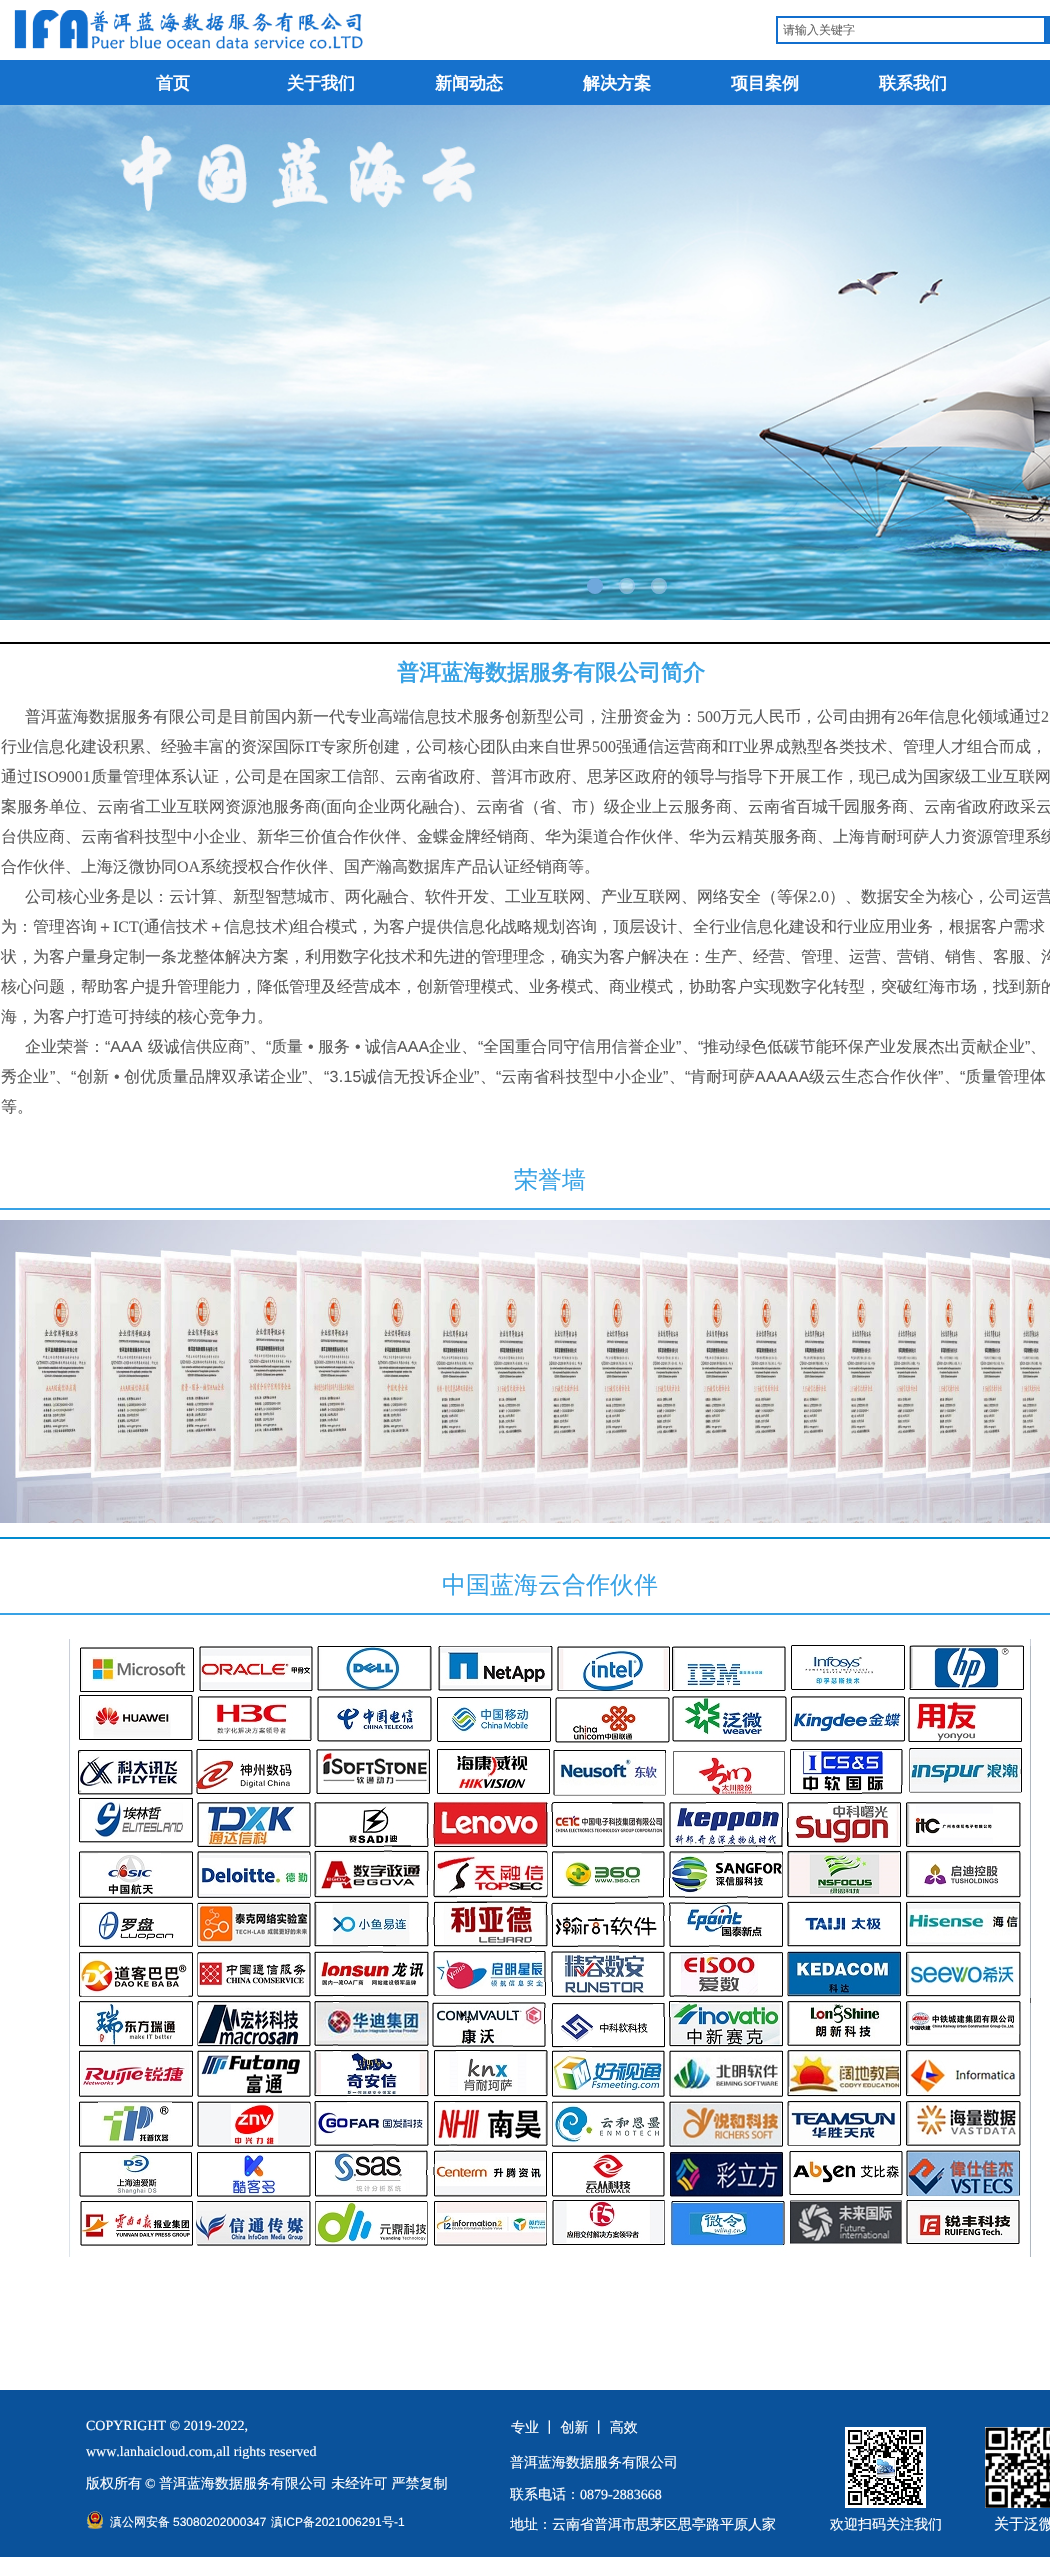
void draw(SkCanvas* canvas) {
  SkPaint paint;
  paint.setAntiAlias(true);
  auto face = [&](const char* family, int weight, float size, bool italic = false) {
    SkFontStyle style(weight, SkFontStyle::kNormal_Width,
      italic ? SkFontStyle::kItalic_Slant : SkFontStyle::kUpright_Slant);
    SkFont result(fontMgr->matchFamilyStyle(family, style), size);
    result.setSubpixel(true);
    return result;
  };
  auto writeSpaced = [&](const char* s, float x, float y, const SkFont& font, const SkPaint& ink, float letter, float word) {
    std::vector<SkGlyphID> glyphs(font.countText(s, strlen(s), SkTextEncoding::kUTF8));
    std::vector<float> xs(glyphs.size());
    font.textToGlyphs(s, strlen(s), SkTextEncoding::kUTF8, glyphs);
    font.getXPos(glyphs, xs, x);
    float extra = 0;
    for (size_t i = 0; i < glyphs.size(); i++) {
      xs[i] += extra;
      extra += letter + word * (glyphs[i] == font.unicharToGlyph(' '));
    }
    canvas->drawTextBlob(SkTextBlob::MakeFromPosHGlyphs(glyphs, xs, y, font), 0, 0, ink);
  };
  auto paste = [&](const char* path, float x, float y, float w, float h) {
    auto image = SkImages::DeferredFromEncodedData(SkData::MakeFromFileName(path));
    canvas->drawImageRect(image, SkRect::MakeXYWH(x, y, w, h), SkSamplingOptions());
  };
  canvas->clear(0xffffffff);
  paste("img/1.png", 14, 10, 349, 39);
  paint.setStroke(true);
  paint.setStrokeWidth(2);
  paint.setColor(0xff116ecd);
  canvas->drawRect(SkRect::MakeXYWH(777, 17, 268, 26), paint);
  paint.setStroke(false);
  paint.setColor(0xff1671cc);
  canvas->drawRect(SkRect::MakeXYWH(1046, 16, 4, 28), paint);
  canvas->drawRect(SkRect::MakeXYWH(0, 60, 1050, 45), paint);
  paste("img/2.png", 0, 105, 1050, 515);
  paint.setColor(0xff6fa8dc);
  canvas->drawCircle(595, 586, 7, paint);
  paint.setStroke(true);
  canvas->drawCircle(595, 586, 7, paint);
  paint.setStroke(false);
  paint.setColor(0x66ffffff);
  canvas->drawCircle(627, 586, 8, paint);
  paint.setStroke(true);
  paint.setColor(0x666fa8dc);
  canvas->drawCircle(627, 586, 7, paint);
  paint.setStroke(false);
  paint.setColor(0x66ffffff);
  canvas->drawCircle(659, 586, 8, paint);
  paint.setStroke(true);
  paint.setColor(0x666fa8dc);
  canvas->drawCircle(659, 586, 7, paint);
  paint.setStroke(false);
  paint.setColor(0xff000000);
  canvas->drawRect(SkRect::MakeXYWH(0, 642, 1050, 2), paint);
  paint.setColor(0xff38a2e5);
  canvas->drawRect(SkRect::MakeXYWH(0, 1208, 1050, 2), paint);
  paste("img/3.png", 0, 1220, 1050, 303);
  paint.setColor(0xff028bcf);
  canvas->drawRect(SkRect::MakeXYWH(0, 1537, 1050, 2), paint);
  paint.setColor(0xff38a2e5);
  canvas->drawRect(SkRect::MakeXYWH(0, 1613, 1050, 2), paint);
  paste("img/4.png", 69, 1639, 962, 618);
  paint.setColor(0xff0a529b);
  canvas->drawRect(SkRect::MakeXYWH(0, 2390, 1050, 167), paint);
  paste("img/5.png", 845, 2427, 81, 81);
  paste("img/6.png", 985, 2427, 65, 81);
  paste("img/7.png", 87, 2511, 16, 18);
  auto f0 = face("WenQuanYi Zen Hei", 500, 12);
  paint.setColor(0xff666666);
  canvas->drawString("请输入关键字", 783, 34, f0, paint);
  auto f1 = face("WenQuanYi Zen Hei", 700, 17);
  paint.setColor(0xffffffff);
  {
    const struct { const char* s; float x, y; } items[] = {
      {"首页", 156, 89},
      {"关于我们", 287, 89},
      {"新闻动态", 435, 89},
      {"解决方案", 583, 89},
      {"项目案例", 731, 89},
      {"联系我们", 879, 89},
    };
    for (auto [s, x, y] : items) {
      canvas->drawString(s, x, y, f1, paint);
    }
  }
  auto f2 = face("WenQuanYi Zen Hei", 700, 22);
  paint.setColor(0xff38a2e5);
  canvas->drawString("普洱蓝海数据服务有限公司简介", 397, 680, f2, paint);
  auto f3 = face("WenQuanYi Zen Hei", 500, 16);
  paint.setColor(0xff5a5a5a);
  canvas->drawString("普洱蓝海数据服务有限公司是目前国内新一代专业高端信息技术服务创新型公司，注册资金为：", 25, 722, f3, paint);
  auto f4 = face("Liberation Serif", 400, 16);
  canvas->drawString("500", 697, 722, f4, paint);
  canvas->drawString("万元人民币，公司由拥有", 721, 722, f3, paint);
  canvas->drawString("26", 897, 722, f4, paint);
  canvas->drawString("年信息化领域通过", 913, 722, f3, paint);
  canvas->drawString("2", 1041, 722, f4, paint);
  canvas->drawString("行业信息化建设积累、经验丰富的资深国际", 1, 752, f3, paint);
  canvas->drawString("IT", 305, 752, f4, paint);
  canvas->drawString("专家所创建，公司核心团队由来自世界", 320, 752, f3, paint);
  canvas->drawString("500", 592, 752, f4, paint);
  canvas->drawString("强通信运营商和", 616, 752, f3, paint);
  canvas->drawString("IT", 728, 752, f4, paint);
  canvas->drawString("业界成熟型各类技术、管理人才组合而成，", 743, 752, f3, paint);
  canvas->drawString("通过", 1, 782, f3, paint);
  canvas->drawString("ISO9001", 33, 782, f4, paint);
  canvas->drawString("质量管理体系认证，公司是在国家工信部、云南省政府、普洱市政府、思茅区政府的领导与指导下开展工作，现已成为国家级工业互联网", 91, 782, f3, paint);
  canvas->drawString("案服务单位、云南省工业互联网资源池服务商", 1, 812, f3, paint);
  canvas->drawString("(", 321, 812, f4, paint);
  canvas->drawString("面向企业两化融合", 326, 812, f3, paint);
  canvas->drawString(")", 454, 812, f4, paint);
  {
    const struct { const char* s; float x, y; } items[] = {
      {"、云南省（省、市）级企业上云服务商、云南省百城千园服务商、云南省政府政采云", 460, 812},
      {"台供应商、云南省科技型中小企业、新华三价值合作伙伴、金蝶金牌经销商、华为渠道合作伙伴、华为云精英服务商、上海肯耐珂萨人力资源管理系统", 1, 842},
      {"合作伙伴、上海泛微协同", 1, 872},
    };
    for (auto [s, x, y] : items) {
      canvas->drawString(s, x, y, f3, paint);
    }
  }
  canvas->drawString("OA", 177, 872, f4, paint);
  canvas->drawString("系统授权合作伙伴、国产瀚高数据库产品认证经销商等。", 200, 872, f3, paint);
  canvas->drawString("公司核心业务是以：云计算、新型智慧城市、两化融合、软件开发、工业互联网、产业互联网、网络安全（等保", 25, 902, f3, paint);
  canvas->drawString("2.0", 809, 902, f4, paint);
  canvas->drawString("）、数据安全为核心，公司运营", 829, 902, f3, paint);
  canvas->drawString("为：管理咨询＋", 1, 932, f3, paint);
  canvas->drawString("ICT(", 113, 932, f4, paint);
  canvas->drawString("通信技术＋信息技术", 144, 932, f3, paint);
  canvas->drawString(")", 288, 932, f4, paint);
  {
    const struct { const char* s; float x, y; } items[] = {
      {"组合模式，为客户提供信息化战略规划咨询，顶层设计、全行业信息化建设和行业应用业务，根据客户需求", 293, 932},
      {"状，为客户量身定制一条龙整体解决方案，利用数字化技术和先进的管理理念，确实为客户解决在：生产、经营、管理、运营、营销、销售、客服、沟", 1, 962},
      {"核心问题，帮助客户提升管理能力，降低管理及经营成本，创新管理模式、业务模式、商业模式，协助客户实现数字化转型，突破红海市场，找到新的", 1, 992},
      {"海，为客户打造可持续的核心竞争力。", 1, 1022},
      {"企业荣誉：", 25, 1052},
    };
    for (auto [s, x, y] : items) {
      canvas->drawString(s, x, y, f3, paint);
    }
  }
  auto f5 = face("Liberation Sans", 400, 16);
  canvas->drawString("“AAA", 105, 1052, f5, paint);
  canvas->drawString("级诚信供应商", 148, 1052, f3, paint);
  canvas->drawString("”", 244, 1052, f5, paint);
  canvas->drawString("“", 266, 1052, f5, paint);
  canvas->drawString("质量", 271, 1052, f3, paint);
  canvas->drawString("服务", 318, 1052, f3, paint);
  writeSpaced("诚信", 365, 1052, f3, paint, 0.1f, 0);
  writeSpaced("AAA", 397, 1052, f5, paint, 0.1f, 0);
  writeSpaced("企业、", 429, 1052, f3, paint, 0.1f, 0);
  writeSpaced("“", 478, 1052, f5, paint, 0.1f, 0);
  writeSpaced("全国重合同守信用信誉企业", 483, 1052, f3, paint, 0.1f, 0);
  writeSpaced("”", 676, 1052, f5, paint, 0.1f, 0);
  writeSpaced("“", 698, 1052, f5, paint, 0.1f, 0);
  writeSpaced("推动绿色低碳节能环保产业发展杰出贡献企业", 703, 1052, f3, paint, 0.1f, 0);
  writeSpaced("”", 1025, 1052, f5, paint, 0.1f, 0);
  canvas->drawString("•", 308, 1052, f5, paint);
  writeSpaced("•", 355, 1052, f5, paint, 0.1f, 0);
  canvas->drawString("、", 250, 1052, f3, paint);
  writeSpaced("、", 682, 1052, f3, paint, 0.1f, 0);
  writeSpaced("、", 1030, 1052, f3, paint, 0.1f, 0);
  canvas->drawString("秀企业", 1, 1082, f3, paint);
  canvas->drawString("”", 50, 1082, f5, paint);
  canvas->drawString("“", 71, 1082, f5, paint);
  canvas->drawString("创新", 77, 1082, f3, paint);
  writeSpaced("创优质量品牌双承诺企业", 124, 1082, f3, paint, 0.25f, 0);
  writeSpaced("”", 302, 1082, f5, paint, 0.25f, 0);
  writeSpaced("“3.15", 324, 1082, f5, paint, 0.25f, 0);
  writeSpaced("诚信无投诉企业", 361, 1082, f3, paint, 0.25f, 0);
  writeSpaced("”", 474, 1082, f5, paint, 0.25f, 0);
  writeSpaced("“", 496, 1082, f5, paint, 0.25f, 0);
  writeSpaced("云南省科技型中小企业", 501, 1082, f3, paint, 0.25f, 0);
  writeSpaced("”", 663, 1082, f5, paint, 0.25f, 0);
  writeSpaced("“", 685, 1082, f5, paint, 0.25f, 0);
  writeSpaced("肯耐珂萨", 690, 1082, f3, paint, 0.25f, 0);
  writeSpaced("AAAAA", 755, 1082, f5, paint, 0.25f, 0);
  writeSpaced("级云生态合作伙伴", 809, 1082, f3, paint, 0.25f, 0);
  writeSpaced("”", 938, 1082, f5, paint, 0.25f, 0);
  writeSpaced("“", 960, 1082, f5, paint, 0.25f, 0);
  writeSpaced("质量管理体", 965, 1082, f3, paint, 0.25f, 0);
  canvas->drawString("•", 114, 1082, f5, paint);
  canvas->drawString("、", 55, 1082, f3, paint);
  {
    const struct { const char* s; float x, y; } items[] = {
      {"、", 307, 1082},
      {"、", 480, 1082},
      {"、", 669, 1082},
      {"、", 944, 1082},
    };
    for (auto [s, x, y] : items) {
      writeSpaced(s, x, y, f3, paint, 0.25f, 0);
    }
  }
  canvas->drawString("等。", 1, 1112, f3, paint);
  auto f6 = face("WenQuanYi Zen Hei", 500, 24);
  paint.setColor(0xff38a2e5);
  canvas->drawString("荣誉墙", 514, 1188, f6, paint);
  canvas->drawString("中国蓝海云合作伙伴", 442, 1593, f6, paint);
  auto f7 = face("Liberation Serif", 400, 14);
  paint.setColor(0xffffffff);
  canvas->drawString("COPYRIGHT © 2019-2022,", 86, 2430, f7, paint);
  canvas->drawString("www.lanhaicloud.com,all rights reserved", 86, 2456, f7, paint);
  auto f8 = face("WenQuanYi Zen Hei", 500, 14);
  canvas->drawString("版权所有", 86, 2488, f8, paint);
  canvas->drawString("©", 145, 2488, f7, paint);
  canvas->drawString("普洱蓝海数据服务有限公司 未经许可 严禁复制", 159, 2488, f8, paint);
  writeSpaced("专业 丨 创新 丨 高效", 511, 2432, f8, paint, 0, -0.5f);
  canvas->drawString("普洱蓝海数据服务有限公司", 510, 2467, f8, paint);
  canvas->drawString("联系电话：", 510, 2499, f8, paint);
  canvas->drawString("0879-2883668", 580, 2499, f7, paint);
  canvas->drawString("滇公网安备", 110, 2526, f0, paint);
  auto f9 = face("Liberation Sans", 400, 12);
  canvas->drawString("53080202000347", 173, 2526, f9, paint);
  canvas->drawString("滇", 271, 2526, f0, paint);
  canvas->drawString("ICP", 283, 2526, f9, paint);
  canvas->drawString("备", 303, 2526, f0, paint);
  canvas->drawString("2021006291", 315, 2526, f9, paint);
  canvas->drawString("号", 382, 2526, f0, paint);
  canvas->drawString("-1", 394, 2526, f9, paint);
  canvas->drawString("地址：云南省普洱市思茅区思亭路平原人家", 510, 2529, f8, paint);
  canvas->drawString("欢迎扫码关注我们", 830, 2529, f8, paint);
  auto f10 = face("WenQuanYi Zen Hei", 500, 15);
  canvas->drawString("关于泛微", 994, 2529, f10, paint);
}
